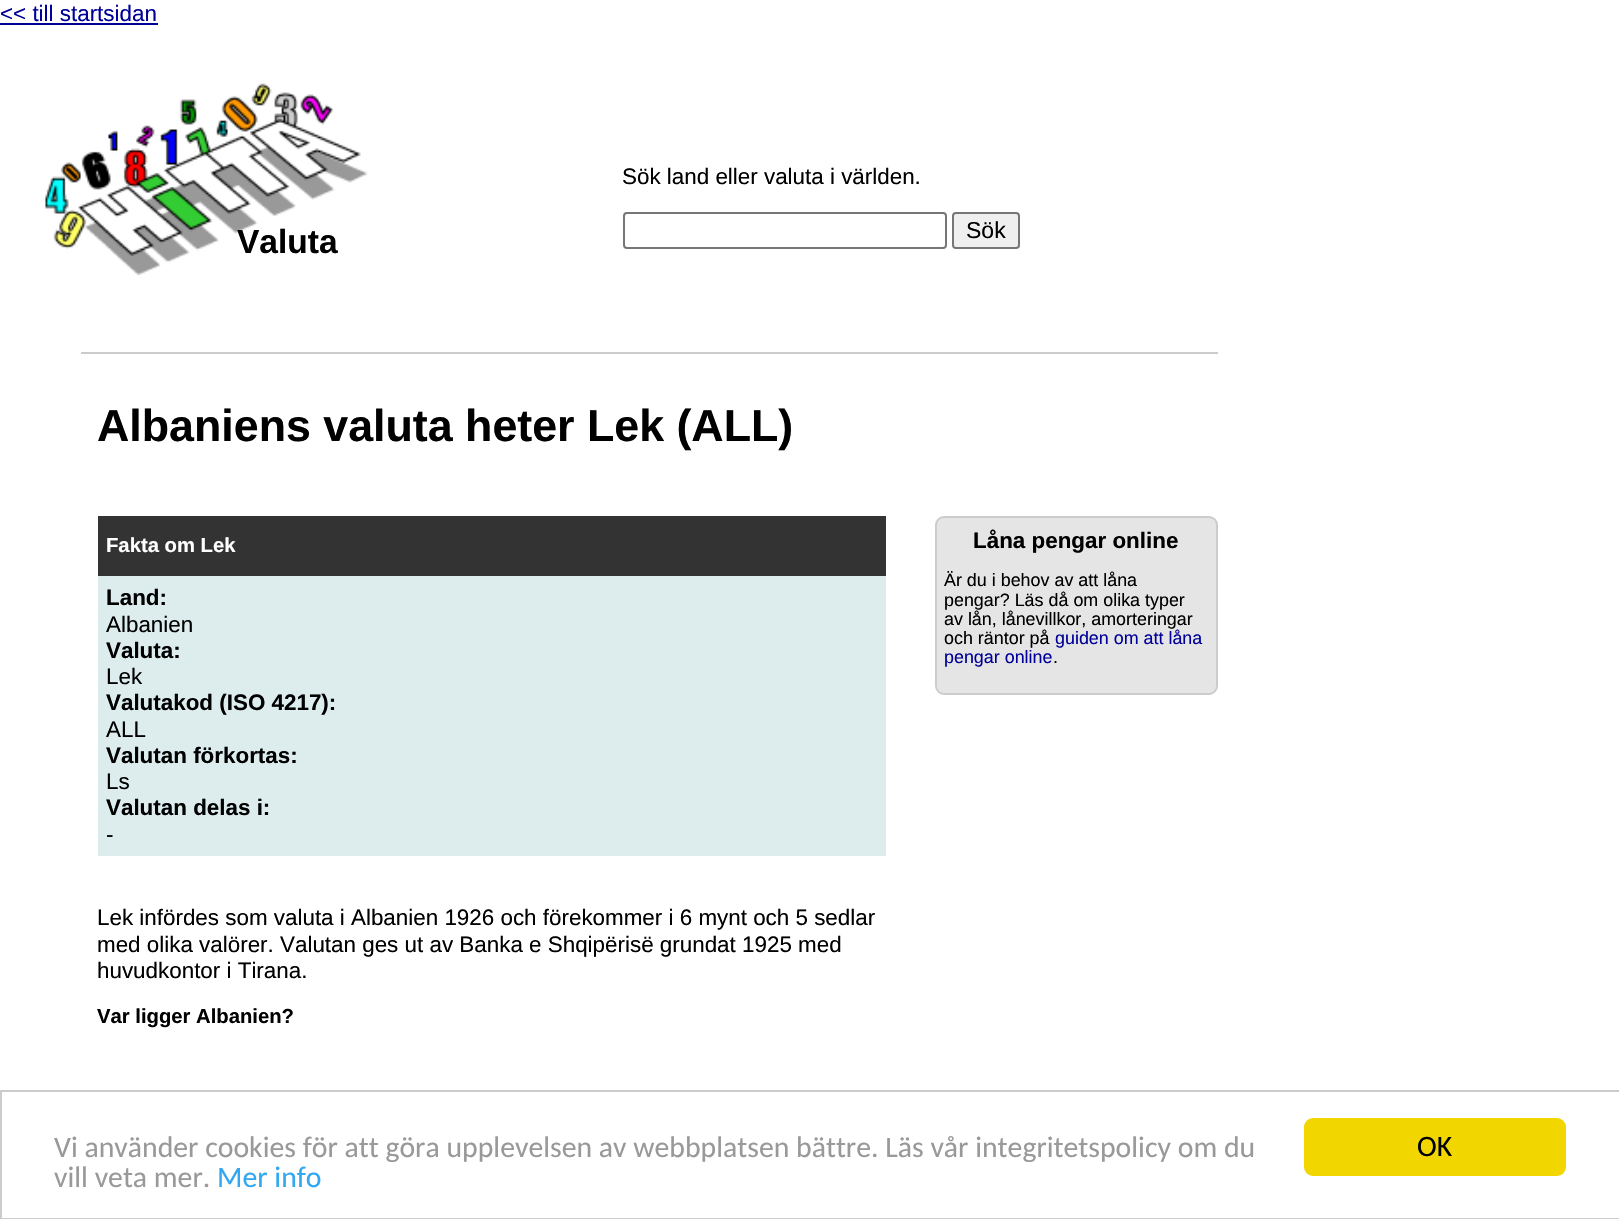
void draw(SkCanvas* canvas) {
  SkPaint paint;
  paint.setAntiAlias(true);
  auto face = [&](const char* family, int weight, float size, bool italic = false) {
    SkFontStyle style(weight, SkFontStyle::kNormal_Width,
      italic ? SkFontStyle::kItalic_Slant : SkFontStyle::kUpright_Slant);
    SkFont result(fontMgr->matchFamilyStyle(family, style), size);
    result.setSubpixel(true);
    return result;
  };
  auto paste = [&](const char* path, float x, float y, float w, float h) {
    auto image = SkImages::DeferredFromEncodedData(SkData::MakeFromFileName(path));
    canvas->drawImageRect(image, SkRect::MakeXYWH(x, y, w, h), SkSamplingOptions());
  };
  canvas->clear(0xffffffff);
  paint.setColor(0xff000099);
  canvas->drawRect(SkRect::MakeXYWH(0, 23, 158, 2), paint);
  paste("img/1.png", 45, 83, 323, 192);
  paint.setStroke(true);
  paint.setStrokeWidth(2);
  paint.setColor(0xff767676);
  canvas->drawRoundRect(SkRect::MakeXYWH(624, 213, 322, 35), 3, 3, paint);
  paint.setStroke(false);
  paint.setColor(0xffefefef);
  canvas->drawRoundRect(SkRect::MakeXYWH(953, 213, 66, 35), 3, 3, paint);
  paint.setStroke(true);
  paint.setColor(0xff767676);
  canvas->drawRoundRect(SkRect::MakeXYWH(953, 213, 66, 35), 3, 3, paint);
  paint.setStroke(false);
  {
    const struct { float x, y, w, h; SkColor color; } items[] = {
      {81, 352, 1137, 2, 0xffcccccc},
      {98, 516, 788, 60, 0xff333333},
      {98, 576, 788, 280, 0xffddedee},
    };
    for (auto [x, y, w, h, color] : items) {
      paint.setColor(color);
      canvas->drawRect(SkRect::MakeXYWH(x, y, w, h), paint);
    }
  }
  paint.setColor(0xffe5e5e5);
  canvas->drawRoundRect(SkRect::MakeXYWH(936, 517, 281, 177), 8, 8, paint);
  paint.setStroke(true);
  paint.setColor(0xffcccccc);
  canvas->drawRoundRect(SkRect::MakeXYWH(936, 517, 281, 177), 8, 8, paint);
  canvas->drawRect(SkRect::MakeXYWH(1, 1091, 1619, 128), paint);
  paint.setStroke(false);
  paint.setColor(0xfff1d600);
  canvas->drawRoundRect(SkRect::MakeXYWH(1304, 1118, 262, 58), 9, 9, paint);
  auto f0 = face("Liberation Sans", 400, 22.4f);
  paint.setColor(0xff000099);
  canvas->drawString("<< till startsidan", 0, 21, f0, paint);
  auto f1 = face("Liberation Sans", 700, 33.5f);
  paint.setColor(0xff000000);
  canvas->drawString("Valuta", 237, 253, f1, paint);
  canvas->drawString("Sök land eller valuta i världen.", 622, 184, f0, paint);
  auto f2 = face("Liberation Sans", 400, 23);
  canvas->drawString("Sök", 966, 238, f2, paint);
  auto f3 = face("Liberation Sans", 700, 44.75f);
  canvas->drawString("Albaniens valuta heter Lek (ALL)", 97, 441, f3, paint);
  auto f4 = face("Liberation Sans", 700, 20.25f);
  paint.setColor(0xffffffff);
  canvas->drawString("Fakta om Lek", 106, 552, f4, paint);
  auto f5 = face("Liberation Sans", 700, 22.4f);
  paint.setColor(0xff000000);
  canvas->drawString("Land:", 106, 605, f5, paint);
  canvas->drawString("Albanien", 106, 632, f0, paint);
  canvas->drawString("Valuta:", 106, 658, f5, paint);
  canvas->drawString("Lek", 106, 684, f0, paint);
  canvas->drawString("Valutakod (ISO 4217):", 106, 710, f5, paint);
  canvas->drawString("ALL", 106, 737, f0, paint);
  canvas->drawString("Valutan förkortas:", 106, 763, f5, paint);
  canvas->drawString("Ls", 106, 789, f0, paint);
  canvas->drawString("Valutan delas i:", 106, 815, f5, paint);
  {
    const struct { const char* s; float x, y; } items[] = {
      {"-", 106, 842},
      {"Lek infördes som valuta i Albanien 1926 och förekommer i 6 mynt och 5 sedlar", 97, 925},
      {"med olika valörer. Valutan ges ut av Banka e Shqipërisë grundat 1925 med", 97, 952},
      {"huvudkontor i Tirana.", 97, 978},
    };
    for (auto [s, x, y] : items) {
      canvas->drawString(s, x, y, f0, paint);
    }
  }
  canvas->drawString("Var ligger Albanien?", 97, 1023, f4, paint);
  canvas->drawString("Låna pengar online", 973, 548, f5, paint);
  auto f6 = face("Liberation Sans", 400, 17.9f);
  {
    const struct { const char* s; float x, y; } items[] = {
      {"Är du i behov av att låna", 944, 586},
      {"pengar? Läs då om olika typer", 944, 606},
      {"av lån, lånevillkor, amorteringar", 944, 625},
      {"och räntor på", 944, 644},
    };
    for (auto [s, x, y] : items) {
      canvas->drawString(s, x, y, f6, paint);
    }
  }
  paint.setColor(0xff000099);
  canvas->drawString("guiden om att låna", 1055, 644, f6, paint);
  canvas->drawString("pengar online", 944, 663, f6, paint);
  paint.setColor(0xff000000);
  canvas->drawString(".", 1053, 663, f6, paint);
  auto f7 = face("Carlito", 400, 29.75f);
  paint.setColor(0xff999999);
  canvas->drawString("Vi använder cookies för att göra upplevelsen av webbplatsen bättre. Läs vår integritetspolicy om du", 54, 1157, f7, paint);
  canvas->drawString("vill veta mer.", 54, 1187, f7, paint);
  paint.setColor(0xff31a8f0);
  canvas->drawString("Mer info", 217, 1187, f7, paint);
  paint.setColor(0xff000000);
  canvas->drawString("OK", 1417, 1156, f7, paint);
}
